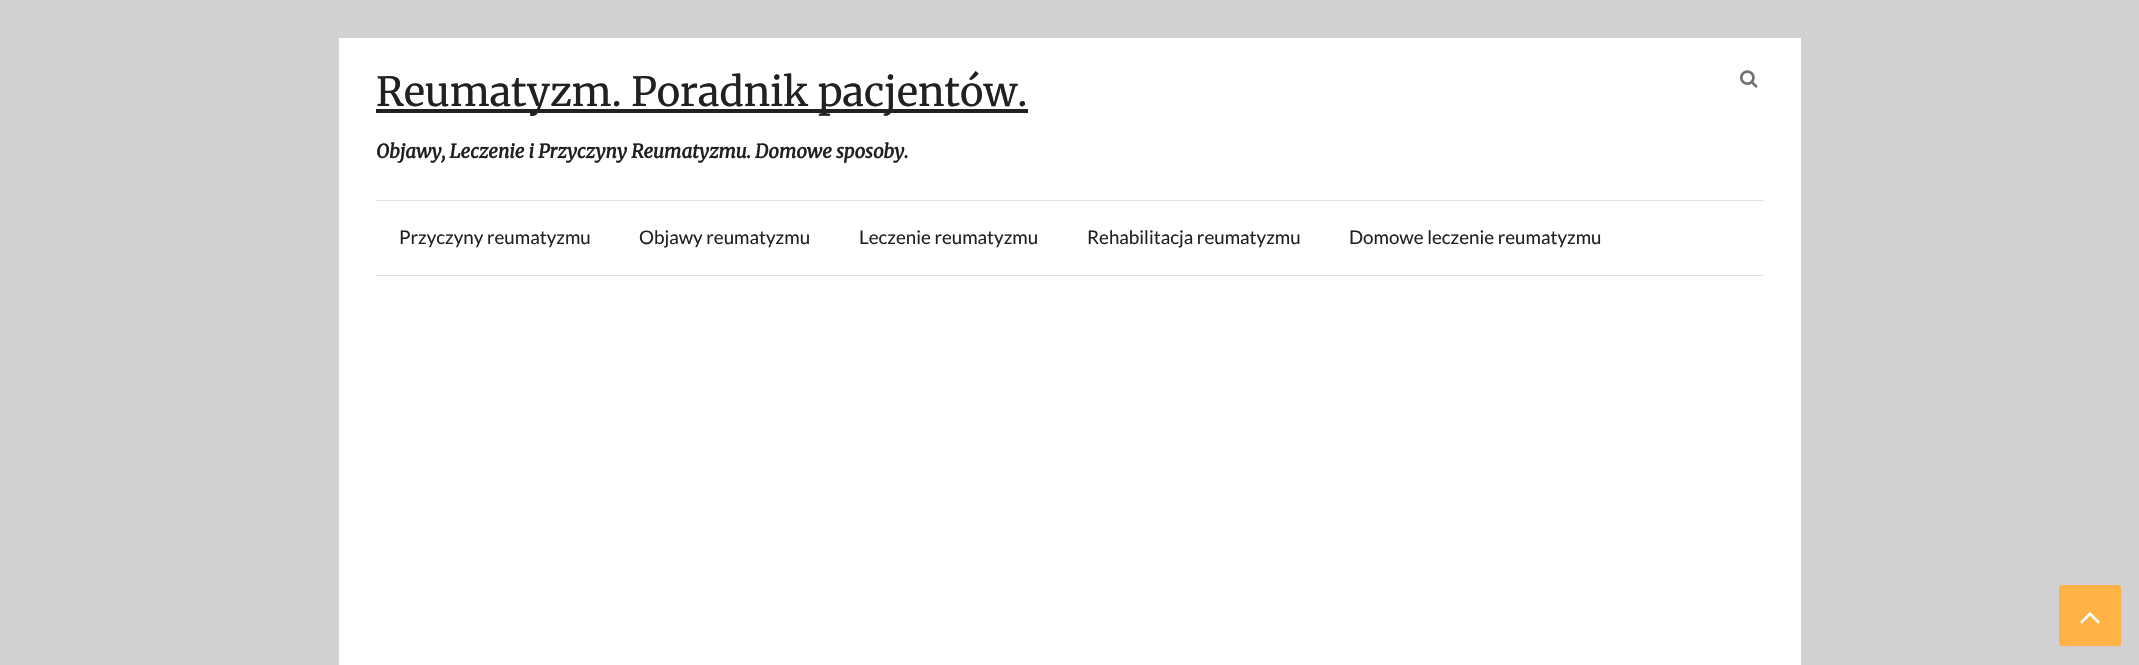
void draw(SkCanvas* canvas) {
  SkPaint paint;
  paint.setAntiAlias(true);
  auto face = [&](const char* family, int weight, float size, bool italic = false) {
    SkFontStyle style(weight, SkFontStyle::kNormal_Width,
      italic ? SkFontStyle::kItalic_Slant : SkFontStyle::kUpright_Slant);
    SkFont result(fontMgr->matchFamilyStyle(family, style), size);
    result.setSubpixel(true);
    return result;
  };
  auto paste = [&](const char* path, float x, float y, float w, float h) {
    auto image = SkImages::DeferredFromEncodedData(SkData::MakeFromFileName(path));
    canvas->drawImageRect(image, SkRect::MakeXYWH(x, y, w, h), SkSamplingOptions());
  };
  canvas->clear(0xffd1d1d1);
  paint.setColor(0xffffffff);
  canvas->drawRect(SkRect::MakeXYWH(339, 38, 1462, 627), paint);
  paint.setColor(0xff212121);
  canvas->drawRect(SkRect::MakeXYWH(376, 109, 652, 4), paint);
  paste("img/1.png", 1740, 70, 18, 18);
  paint.setColor(0xffe1e1e1);
  canvas->drawRect(SkRect::MakeXYWH(376, 200, 1388, 1), paint);
  canvas->drawRect(SkRect::MakeXYWH(376, 275, 1388, 1), paint);
  paint.setColor(0xffffb246);
  canvas->drawRoundRect(SkRect::MakeXYWH(2059, 585, 62, 61), 2.5f, 2.5f, paint);
  paste("img/2.png", 2080, 612, 20, 12);
  auto f0 = face("Merriweather", 400, 40);
  paint.setColor(0xff212121);
  canvas->drawString("Reumatyzm. Poradnik pacjentów.", 376, 106, f0, paint);
  auto f1 = face("Merriweather", 700, 18.75f, true);
  canvas->drawString("Objawy, Leczenie i Przyczyny Reumatyzmu. Domowe sposoby.", 376, 158, f1, paint);
  auto f2 = face("Lato", 400, 18.75f);
  {
    const struct { const char* s; float x, y; } items[] = {
      {"Przyczyny reumatyzmu", 399, 244},
      {"Objawy reumatyzmu", 639, 244},
      {"Leczenie reumatyzmu", 859, 244},
      {"Rehabilitacja reumatyzmu", 1087, 244},
      {"Domowe leczenie reumatyzmu", 1349, 244},
    };
    for (auto [s, x, y] : items) {
      canvas->drawString(s, x, y, f2, paint);
    }
  }
}
